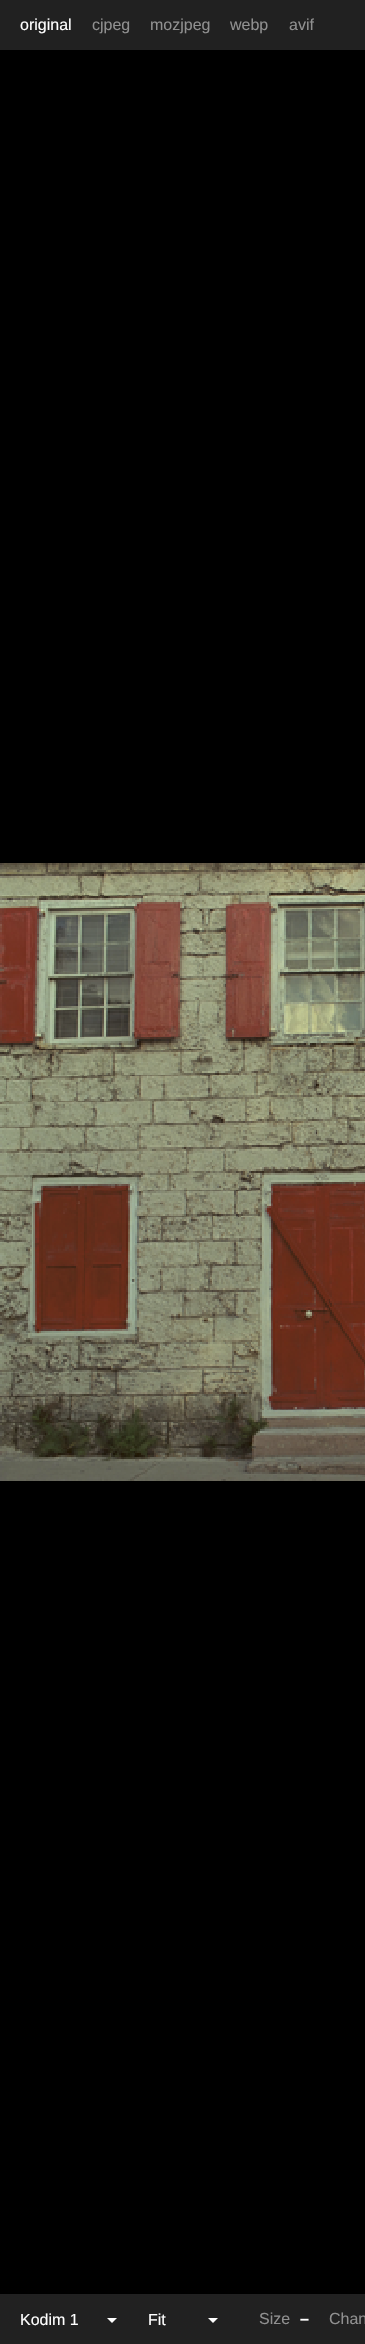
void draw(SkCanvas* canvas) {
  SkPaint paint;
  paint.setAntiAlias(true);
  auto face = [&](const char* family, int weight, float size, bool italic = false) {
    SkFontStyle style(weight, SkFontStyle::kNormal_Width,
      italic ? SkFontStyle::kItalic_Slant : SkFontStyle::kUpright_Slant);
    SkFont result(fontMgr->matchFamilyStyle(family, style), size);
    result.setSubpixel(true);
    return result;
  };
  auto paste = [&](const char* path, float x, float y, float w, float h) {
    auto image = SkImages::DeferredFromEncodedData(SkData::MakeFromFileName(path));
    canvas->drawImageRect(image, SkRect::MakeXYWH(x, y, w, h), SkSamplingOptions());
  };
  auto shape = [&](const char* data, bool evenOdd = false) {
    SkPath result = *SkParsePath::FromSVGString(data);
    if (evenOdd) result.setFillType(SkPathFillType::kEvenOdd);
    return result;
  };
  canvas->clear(0xff000000);
  paint.setColor(0xff212121);
  canvas->drawRect(SkRect::MakeXYWH(0, 0, 365, 50), paint);
  paste("img/1.png", 0, 863, 365, 618);
  canvas->drawRect(SkRect::MakeXYWH(0, 2294, 365, 50), paint);
  paint.setColor(0xffffffff);
  canvas->drawPath(shape("M112 2323L107 2318H117Z", true), paint);
  canvas->drawPath(shape("M213 2323L208 2318H218Z", true), paint);
  auto f0 = face("Liberation Sans", 400, 16);
  canvas->drawString("original", 20, 30, f0, paint);
  paint.setColor(0xff909090);
  {
    const struct { const char* s; float x, y; } items[] = {
      {"cjpeg", 92, 30},
      {"mozjpeg", 150, 30},
      {"webp", 230, 30},
      {"avif", 289, 30},
    };
    for (auto [s, x, y] : items) {
      canvas->drawString(s, x, y, f0, paint);
    }
  }
  paint.setColor(0xffffffff);
  canvas->drawString("Kodim 1", 20, 2325, f0, paint);
  canvas->drawString("Fit", 148, 2325, f0, paint);
  paint.setColor(0xff909090);
  canvas->drawString("Size", 259, 2324, f0, paint);
  auto f1 = face("Liberation Sans", 700, 16);
  paint.setColor(0xffffffff);
  canvas->drawString("–", 300, 2324, f1, paint);
  paint.setColor(0xff909090);
  canvas->drawString("Chan", 329, 2324, f0, paint);
}
